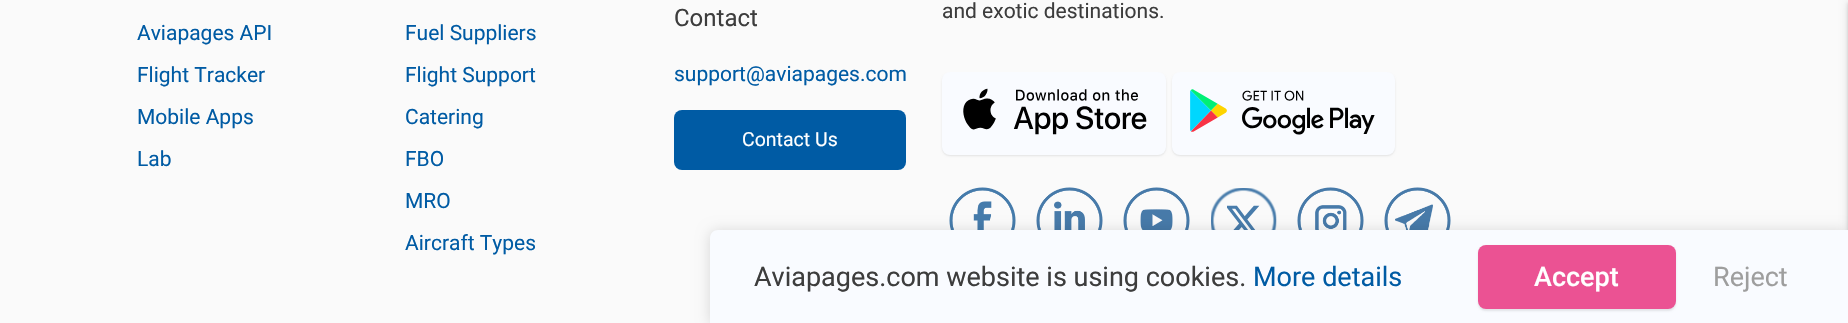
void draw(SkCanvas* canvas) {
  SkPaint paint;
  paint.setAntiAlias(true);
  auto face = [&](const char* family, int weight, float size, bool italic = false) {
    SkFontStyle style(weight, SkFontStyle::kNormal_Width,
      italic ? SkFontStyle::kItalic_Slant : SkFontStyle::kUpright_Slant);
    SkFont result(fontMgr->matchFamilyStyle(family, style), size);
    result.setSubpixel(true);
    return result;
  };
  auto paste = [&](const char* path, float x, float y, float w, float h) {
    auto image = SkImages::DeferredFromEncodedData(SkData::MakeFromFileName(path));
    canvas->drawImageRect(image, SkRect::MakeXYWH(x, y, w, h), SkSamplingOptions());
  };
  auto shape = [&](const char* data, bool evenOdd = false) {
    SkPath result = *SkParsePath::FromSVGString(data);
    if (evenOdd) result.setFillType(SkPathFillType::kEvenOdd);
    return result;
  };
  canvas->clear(0xfffafafa);
  paint.setColor(0xff005ba4);
  canvas->drawRoundRect(SkRect::MakeXYWH(674, 110, 232, 60), 8, 8, paint);
  paint.setColor(0x17000000);
  paint.setMaskFilter(SkMaskFilter::MakeBlur(kNormal_SkBlurStyle, 1));
  canvas->drawRoundRect(SkRect::MakeXYWH(942, 74, 224, 82), 8, 8, paint);
  paint.setMaskFilter(nullptr);
  paint.setColor(0xfff9fbff);
  canvas->drawRoundRect(SkRect::MakeXYWH(942, 72, 224, 83), 8, 8, paint);
  paste("img/1.png", 963, 88, 184, 47);
  paint.setColor(0x17000000);
  paint.setMaskFilter(SkMaskFilter::MakeBlur(kNormal_SkBlurStyle, 1));
  canvas->drawRoundRect(SkRect::MakeXYWH(1172, 74, 223, 82), 8, 8, paint);
  paint.setMaskFilter(nullptr);
  paint.setColor(0xfff9fbff);
  canvas->drawRoundRect(SkRect::MakeXYWH(1172, 72, 223, 83), 8, 8, paint);
  paste("img/2.png", 1190, 89, 185, 46);
  paste("img/3.png", 949, 187, 67, 43);
  paste("img/4.png", 1036, 187, 67, 43);
  paste("img/5.png", 1123, 187, 67, 43);
  paste("img/6.png", 1211, 188, 66, 42);
  paste("img/7.png", 1297, 187, 67, 43);
  paste("img/8.png", 1384, 187, 67, 43);
  paint.setColor(0x24000000);
  paint.setMaskFilter(SkMaskFilter::MakeBlur(kNormal_SkBlurStyle, 7));
  canvas->drawRoundRect(SkRect::MakeXYWH(710, 231, 1138, 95), 8, 8, paint);
  paint.setMaskFilter(nullptr);
  paint.setColor(0x1f000000);
  paint.setMaskFilter(SkMaskFilter::MakeBlur(kNormal_SkBlurStyle, 4));
  canvas->drawRect(SkRect::MakeXYWH(1848, 2, 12, 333), paint);
  paint.setMaskFilter(nullptr);
  paint.setColor(0x24000000);
  paint.setMaskFilter(SkMaskFilter::MakeBlur(kNormal_SkBlurStyle, 1.5f));
  canvas->drawRect(SkRect::MakeXYWH(1848, 3, 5, 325), paint);
  paint.setMaskFilter(nullptr);
  paint.setColor(0xfff9fbff);
  canvas->drawPath(shape("M718 230H1848V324H710V238C710 233.5 713.5 230 718 230Z"), paint);
  paint.setColor(0x17000000);
  paint.setMaskFilter(SkMaskFilter::MakeBlur(kNormal_SkBlurStyle, 1));
  canvas->drawRoundRect(SkRect::MakeXYWH(1478, 246, 198, 65), 8, 8, paint);
  paint.setMaskFilter(nullptr);
  paint.setColor(0xffeb5293);
  canvas->drawRoundRect(SkRect::MakeXYWH(1478, 245, 198, 64), 8, 8, paint);
  auto f0 = face("Roboto", 400, 21);
  paint.setColor(0xff005ba4);
  {
    const struct { const char* s; float x, y; } items[] = {
      {"Aviapages API", 137, 40},
      {"Flight Tracker", 137, 82},
      {"Mobile Apps", 137, 124},
      {"Lab", 137, 166},
      {"Fuel Suppliers", 405, 40},
      {"Flight Support", 405, 82},
      {"Catering", 405, 124},
      {"FBO", 405, 166},
      {"MRO", 405, 208},
      {"Aircraft Types", 405, 250},
    };
    for (auto [s, x, y] : items) {
      canvas->drawString(s, x, y, f0, paint);
    }
  }
  auto f1 = face("Roboto", 400, 24);
  paint.setColor(0xff3d3d3d);
  canvas->drawString("Contact", 674, 26, f1, paint);
  paint.setColor(0xff005ba4);
  canvas->drawString("support@aviapages.com", 674, 81, f0, paint);
  auto f2 = face("Roboto", 400, 19.5f);
  paint.setColor(0xffffffff);
  canvas->drawString("Contact Us", 742, 146, f2, paint);
  paint.setColor(0xff3d3d3d);
  canvas->drawString("and exotic destinations.", 942, 18, f0, paint);
  auto f3 = face("Roboto", 400, 27);
  canvas->drawString("Aviapages.com website is using cookies.", 754, 286, f3, paint);
  paint.setColor(0xff005ba4);
  canvas->drawString("More details", 1253, 286, f3, paint);
  auto f4 = face("Roboto", 500, 27);
  paint.setColor(0xffffffff);
  canvas->drawString("Accept", 1534, 286, f4, paint);
  paint.setColor(0xff9e9e9e);
  canvas->drawString("Reject", 1713, 286, f3, paint);
}
